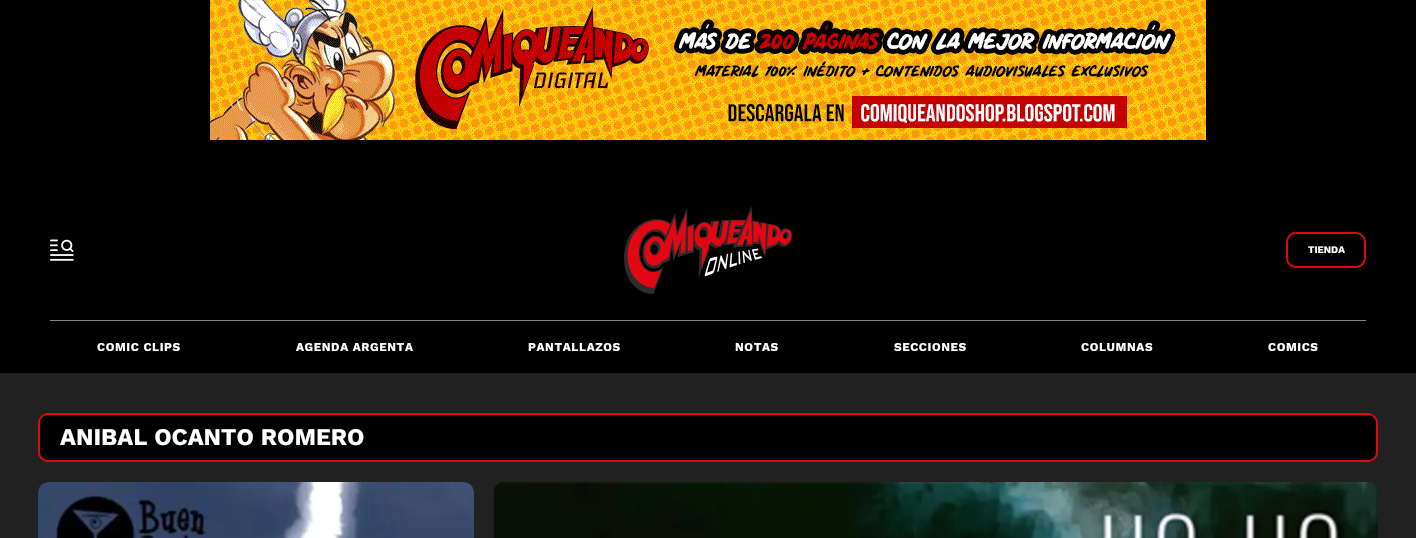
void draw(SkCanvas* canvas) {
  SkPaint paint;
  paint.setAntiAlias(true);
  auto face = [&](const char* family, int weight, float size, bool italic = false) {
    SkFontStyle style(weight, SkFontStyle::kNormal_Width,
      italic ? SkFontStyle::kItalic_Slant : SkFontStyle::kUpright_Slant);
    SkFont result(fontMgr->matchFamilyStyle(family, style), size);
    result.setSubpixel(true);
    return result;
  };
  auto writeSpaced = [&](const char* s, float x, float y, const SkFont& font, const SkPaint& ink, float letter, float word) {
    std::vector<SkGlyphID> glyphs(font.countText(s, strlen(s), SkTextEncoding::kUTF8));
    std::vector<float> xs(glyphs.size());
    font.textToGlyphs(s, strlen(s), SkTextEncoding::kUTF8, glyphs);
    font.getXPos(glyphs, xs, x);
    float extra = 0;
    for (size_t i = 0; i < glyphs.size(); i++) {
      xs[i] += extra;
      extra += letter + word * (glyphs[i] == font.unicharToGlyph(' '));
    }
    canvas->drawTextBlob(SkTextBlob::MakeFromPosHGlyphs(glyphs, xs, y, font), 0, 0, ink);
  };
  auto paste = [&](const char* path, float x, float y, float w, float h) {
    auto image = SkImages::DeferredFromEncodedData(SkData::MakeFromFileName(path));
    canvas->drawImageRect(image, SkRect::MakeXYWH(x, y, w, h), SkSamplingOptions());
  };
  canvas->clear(0xff000000);
  paste("img/1.png", 210, 0, 996, 140);
  paste("img/2.png", 50, 239, 24, 22);
  paste("img/3.png", 624, 206, 168, 88);
  paint.setStroke(true);
  paint.setStrokeWidth(2);
  paint.setColor(0xffe30613);
  canvas->drawRoundRect(SkRect::MakeXYWH(1287, 233, 78, 34), 9, 9, paint);
  paint.setStroke(false);
  paint.setColor(0xff838383);
  canvas->drawRect(SkRect::MakeXYWH(50, 320, 1316, 1), paint);
  paint.setColor(0xff212121);
  canvas->drawRect(SkRect::MakeXYWH(0, 373, 1416, 165), paint);
  paint.setColor(0xff000000);
  canvas->drawRoundRect(SkRect::MakeXYWH(39, 414, 1338, 47), 9, 9, paint);
  paint.setStroke(true);
  paint.setColor(0xffe30613);
  canvas->drawRoundRect(SkRect::MakeXYWH(39, 414, 1338, 47), 9, 9, paint);
  paint.setStroke(false);
  paint.setColor(0xff000000);
  canvas->drawRoundRect(SkRect::MakeXYWH(38, 482, 436, 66), 10, 10, paint);
  paste("img/4.png", 38, 482, 436, 56);
  canvas->drawRoundRect(SkRect::MakeXYWH(494, 482, 884, 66), 10, 10, paint);
  paste("img/5.png", 494, 482, 884, 56);
  auto f0 = face("Kantumruy Pro", 700, 10);
  paint.setColor(0xffffffff);
  canvas->drawString("TIENDA", 1308, 253, f0, paint);
  auto f1 = face("Kantumruy Pro", 700, 12);
  {
    const struct { const char* s; float x, y; } items[] = {
      {"COMIC CLIPS", 97, 351},
      {"AGENDA ARGENTA", 296, 351},
      {"PANTALLAZOS", 528, 351},
      {"NOTAS", 735, 351},
      {"SECCIONES", 894, 351},
      {"COLUMNAS", 1081, 351},
      {"COMICS", 1268, 351},
    };
    for (auto [s, x, y] : items) {
      writeSpaced(s, x, y, f1, paint, 0.6f, 0);
    }
  }
  auto f2 = face("Kantumruy Pro", 700, 24);
  canvas->drawString("ANIBAL OCANTO ROMERO", 60, 445, f2, paint);
}
